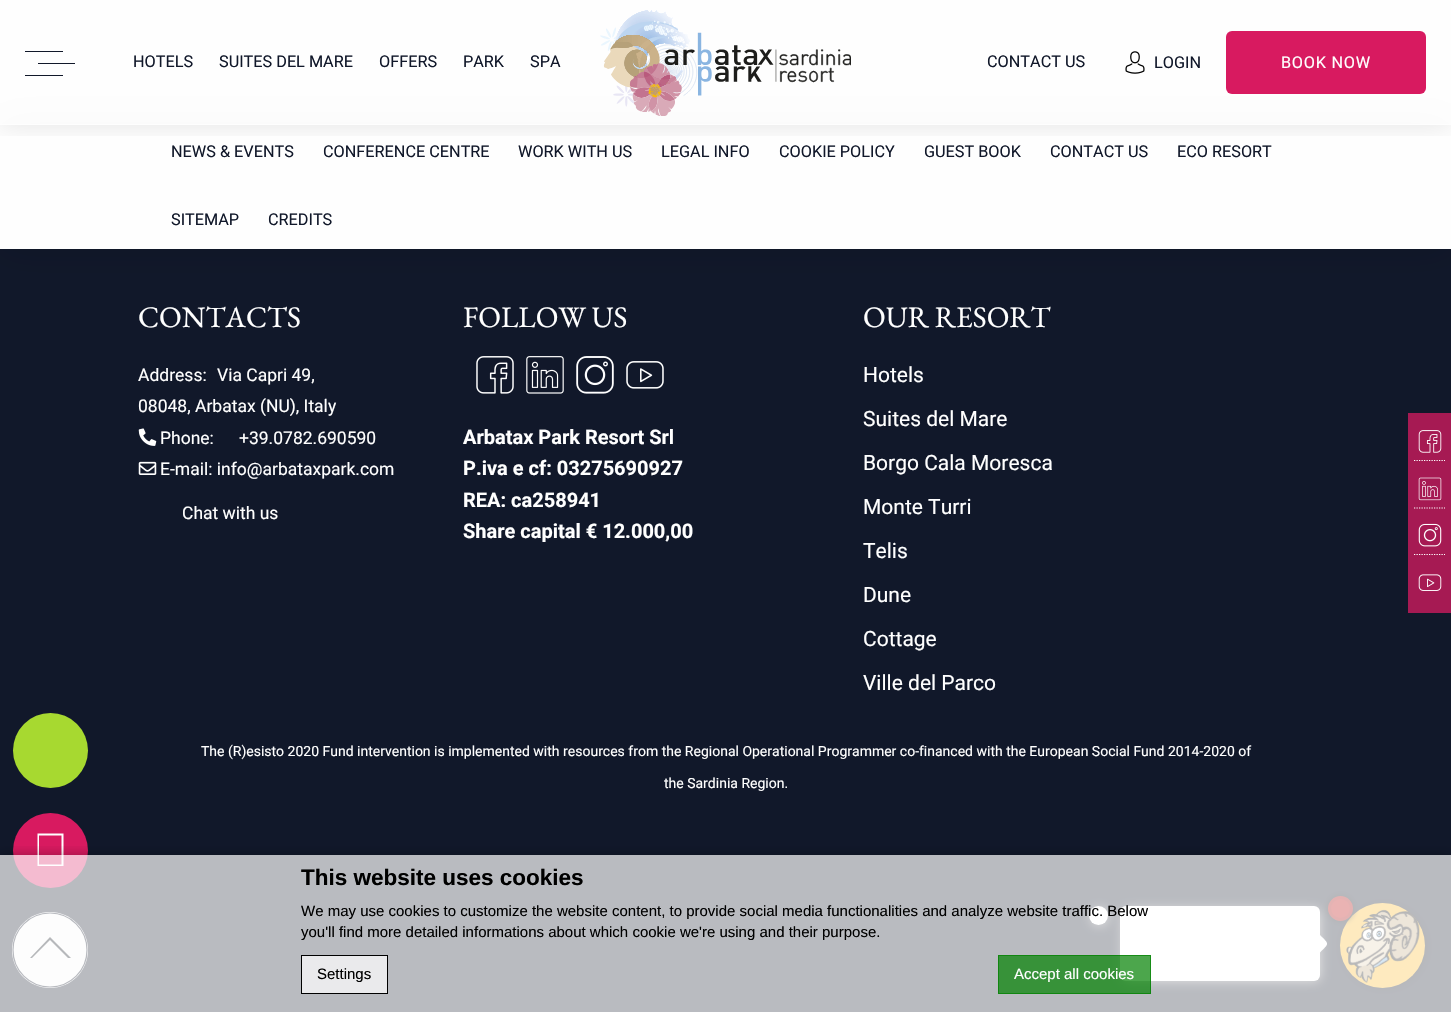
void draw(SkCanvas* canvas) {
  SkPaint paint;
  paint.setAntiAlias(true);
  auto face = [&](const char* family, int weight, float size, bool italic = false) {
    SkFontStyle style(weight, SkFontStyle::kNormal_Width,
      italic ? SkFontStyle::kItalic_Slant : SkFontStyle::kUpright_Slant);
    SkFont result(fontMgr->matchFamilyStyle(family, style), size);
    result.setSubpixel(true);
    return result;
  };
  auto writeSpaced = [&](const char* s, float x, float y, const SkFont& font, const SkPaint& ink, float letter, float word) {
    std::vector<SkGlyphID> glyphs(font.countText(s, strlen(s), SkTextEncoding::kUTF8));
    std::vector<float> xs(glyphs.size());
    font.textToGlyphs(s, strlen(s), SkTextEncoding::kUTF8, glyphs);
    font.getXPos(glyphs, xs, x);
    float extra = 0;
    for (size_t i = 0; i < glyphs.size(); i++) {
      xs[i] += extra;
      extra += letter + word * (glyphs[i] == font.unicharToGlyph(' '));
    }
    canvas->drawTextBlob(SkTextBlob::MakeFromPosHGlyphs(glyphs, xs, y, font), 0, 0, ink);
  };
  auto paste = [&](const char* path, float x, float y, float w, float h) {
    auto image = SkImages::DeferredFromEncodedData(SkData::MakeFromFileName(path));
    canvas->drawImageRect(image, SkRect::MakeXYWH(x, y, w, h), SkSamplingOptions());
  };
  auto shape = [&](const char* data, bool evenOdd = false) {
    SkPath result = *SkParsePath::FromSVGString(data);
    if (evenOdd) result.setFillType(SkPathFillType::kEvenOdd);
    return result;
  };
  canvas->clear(0xfff8f8f8);
  paint.setColor(0xff11182a);
  canvas->drawRect(SkRect::MakeXYWH(0, 249, 1451, 763), paint);
  canvas->save();
  canvas->clipPath(shape("M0 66H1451V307H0ZM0 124H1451V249H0Z", true), true);
  paint.setColor(0x1a000000);
  paint.setMaskFilter(SkMaskFilter::MakeBlur(kNormal_SkBlurStyle, 19));
  canvas->drawRect(SkRect::MakeXYWH(0, 124, 1451, 125), paint);
  paint.setMaskFilter(nullptr);
  canvas->restore();
  paint.setColor(0xccffffff);
  canvas->drawRect(SkRect::MakeXYWH(0, 124, 1451, 125), paint);
  canvas->save();
  canvas->clipRect(SkRect::MakeXYWH(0, 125, 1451, 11));
  paint.setColor(0x1a000000);
  paint.setMaskFilter(SkMaskFilter::MakeBlur(kNormal_SkBlurStyle, 12.5f));
  canvas->drawRect(SkRect::MakeXYWH(0, 0, 1451, 125), paint);
  paint.setMaskFilter(nullptr);
  canvas->restore();
  {
    const struct { float x, y, w, h; SkColor color; } items[] = {
      {0, 0, 1451, 124, 0xccffffff},
      {25, 51, 38, 1, 0xff11182a},
      {25, 75, 38, 1, 0xff11182a},
      {38, 63, 37, 1, 0xff11182a},
    };
    for (auto [x, y, w, h, color] : items) {
      paint.setColor(color);
      canvas->drawRect(SkRect::MakeXYWH(x, y, w, h), paint);
    }
  }
  paste("img/1.png", 600, 10, 251, 106);
  paste("img/2.png", 1125, 51, 20, 23);
  paint.setColor(0xffd81a60);
  canvas->drawRoundRect(SkRect::MakeXYWH(1226, 31, 200, 63), 6, 6, paint);
  paste("img/3.png", 138, 428, 19, 18);
  paste("img/4.png", 138, 461, 19, 14);
  paste("img/5.png", 476, 356, 38, 38);
  paste("img/6.png", 526, 356, 38, 38);
  paste("img/7.png", 576, 356, 38, 38);
  paste("img/8.png", 626, 361, 38, 28);
  paint.setColor(0xffa61a53);
  canvas->drawRect(SkRect::MakeXYWH(1408, 413, 43, 200), paint);
  paint.setStroke(true);
  paint.setStrokeWidth(1.2f);
  paint.setColor(0xffffffff);
  paint.setPathEffect(SkDashPathEffect::Make({{1.25f, 1.25f}}, 0));
  canvas->drawPath(shape("M1414 460.5H1445"), paint);
  paint.setPathEffect(nullptr);
  paste("img/9.png", 1418, 430, 24, 23);
  paint.setPathEffect(SkDashPathEffect::Make({{1.25f, 1.25f}}, 0));
  canvas->drawPath(shape("M1414 508H1445"), paint);
  paint.setPathEffect(nullptr);
  paste("img/10.png", 1418, 477, 24, 24);
  paint.setPathEffect(SkDashPathEffect::Make({{1.25f, 1.25f}}, 0));
  canvas->drawPath(shape("M1414 554.5H1445"), paint);
  paint.setPathEffect(nullptr);
  paste("img/11.png", 1418, 523, 24, 24);
  paste("img/12.png", 1418, 574, 24, 17);
  paint.setStroke(false);
  paint.setColor(0xffa7d930);
  canvas->drawCircle(50.5f, 750.5f, 37.5f, paint);
  paint.setColor(0xffd81a60);
  canvas->drawCircle(50.5f, 850.5f, 37.5f, paint);
  paint.setColor(0xffffffff);
  canvas->drawPath(shape("M37.5 833.5H63.5V866H37.5ZM39 835.5V864.5H61.5V835.5Z"), paint);
  paint.setColor(0xfff8f8f8);
  canvas->drawPath(shape("M12 950C12 929 29 912 50 912C71 912 88 929 88 950C88 971 71 988 50 988C29 988 12 971 12 950Z"), paint);
  paint.setColor(0xff0a1018);
  canvas->drawPath(shape("M32 958H30L50 937L71 958H68L50 940Z"), paint);
  paint.setStroke(true);
  paint.setColor(0xff11182a);
  canvas->drawPath(shape("M13 950C13 929.5 29.5 913 50 913C70.5 913 87 929.5 87 950C87 970.5 70.5 987 50 987C29.5 987 13 970.5 13 950Z"), paint);
  paint.setStroke(false);
  paint.setColor(0xffaaaaaa);
  paint.setMaskFilter(SkMaskFilter::MakeBlur(kNormal_SkBlurStyle, 6));
  canvas->drawRoundRect(SkRect::MakeXYWH(1123, 909, 197, 72), 5, 5, paint);
  paint.setMaskFilter(nullptr);
  paint.setColor(0xffffffff);
  canvas->drawRoundRect(SkRect::MakeXYWH(1120, 906, 200, 75), 6, 6, paint);
  canvas->drawPath(shape("M1320 935C1329.5 944.5 1329.5 943 1320 952.5L1311 944Z"), paint);
  paint.setColor(0xff000000);
  paint.setMaskFilter(SkMaskFilter::MakeBlur(kNormal_SkBlurStyle, 6));
  canvas->drawRoundRect(SkRect::MakeXYWH(1345, 908, 78, 77), 38.5f, 38.5f, paint);
  paint.setMaskFilter(nullptr);
  paint.setColor(0xfffcb928);
  canvas->drawCircle(1382.5f, 945.5f, 42.5f, paint);
  paste("img/13.png", 1346, 909, 74, 74);
  paint.setColor(0xff000000);
  paint.setMaskFilter(SkMaskFilter::MakeBlur(kNormal_SkBlurStyle, 3));
  canvas->drawRoundRect(SkRect::MakeXYWH(1328, 896, 25, 25), 12.5f, 12.5f, paint);
  paint.setMaskFilter(nullptr);
  paint.setColor(0xffb60000);
  canvas->drawCircle(1340.5f, 908.5f, 11, paint);
  paint.setStroke(true);
  paint.setStrokeWidth(3);
  paint.setColor(0xffa30000);
  canvas->drawCircle(1340.5f, 908.5f, 11, paint);
  paint.setStroke(false);
  paint.setColor(0xffaaaaaa);
  paint.setMaskFilter(SkMaskFilter::MakeBlur(kNormal_SkBlurStyle, 6));
  canvas->drawRoundRect(SkRect::MakeXYWH(1091, 909, 17, 16), 8, 8, paint);
  paint.setMaskFilter(nullptr);
  paint.setColor(0xffffffff);
  canvas->drawCircle(1098.5f, 915.5f, 9.5f, paint);
  canvas->save();
  canvas->clipRect(SkRect::MakeXYWH(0, 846, 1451, 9));
  paint.setColor(0x4d000000);
  paint.setMaskFilter(SkMaskFilter::MakeBlur(kNormal_SkBlurStyle, 6));
  canvas->drawRect(SkRect::MakeXYWH(0, 855, 1451, 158), paint);
  paint.setMaskFilter(nullptr);
  canvas->restore();
  paint.setColor(0xb3ffffff);
  canvas->drawRect(SkRect::MakeXYWH(0, 855, 1451, 157), paint);
  paint.setColor(0xffeaeaec);
  canvas->drawRect(SkRect::MakeXYWH(301.5f, 955.5f, 86, 38), paint);
  paint.setStroke(true);
  paint.setStrokeWidth(1);
  paint.setColor(0xff000000);
  canvas->drawRect(SkRect::MakeXYWH(301.5f, 955.5f, 86, 38), paint);
  paint.setStroke(false);
  paint.setColor(0xb3008000);
  canvas->drawRect(SkRect::MakeXYWH(998, 955, 153, 39), paint);
  paint.setStroke(true);
  canvas->drawRect(SkRect::MakeXYWH(998.5f, 955.5f, 152, 38), paint);
  auto f0 = face("Roboto", 400, 16.25f);
  paint.setStroke(false);
  paint.setColor(0xff11182a);
  {
    const struct { const char* s; float x, y; } items[] = {
      {"HOTELS", 133, 67},
      {"SUITES DEL MARE", 219, 67},
      {"OFFERS", 379, 67},
      {"PARK", 463, 67},
      {"SPA", 530, 67},
      {"CONTACT US", 987, 67},
      {"LOGIN", 1154, 68},
    };
    for (auto [s, x, y] : items) {
      canvas->drawString(s, x, y, f0, paint);
    }
  }
  paint.setColor(0xffffffff);
  writeSpaced("BOOK NOW", 1281, 68, f0, paint, 0.75f, 0);
  paint.setColor(0xff11182a);
  {
    const struct { const char* s; float x, y; } items[] = {
      {"NEWS & EVENTS", 171, 157},
      {"CONFERENCE CENTRE", 323, 157},
      {"WORK WITH US", 518, 157},
      {"LEGAL INFO", 661, 157},
      {"COOKIE POLICY", 779, 157},
      {"GUEST BOOK", 924, 157},
      {"CONTACT US", 1050, 157},
      {"ECO RESORT", 1177, 157},
      {"SITEMAP", 171, 225},
      {"CREDITS", 268, 225},
    };
    for (auto [s, x, y] : items) {
      canvas->drawString(s, x, y, f0, paint);
    }
  }
  auto f1 = face("EB Garamond", 400, 29.75f);
  paint.setColor(0xffffffff);
  canvas->drawString("CONTACTS", 138, 327, f1, paint);
  auto f2 = face("Roboto", 400, 17.5f);
  {
    const struct { const char* s; float x, y; } items[] = {
      {"Address:", 138, 381},
      {"Via Capri 49,", 217, 381},
      {"08048, Arbatax (NU), Italy", 138, 412},
      {"Phone:", 160, 444},
      {"+39.0782.690590", 239, 444},
      {"E-mail: info@arbataxpark.com", 160, 475},
      {"Chat with us", 182, 519},
    };
    for (auto [s, x, y] : items) {
      canvas->drawString(s, x, y, f2, paint);
    }
  }
  canvas->drawString("FOLLOW US", 463, 327, f1, paint);
  auto f3 = face("Roboto", 700, 20);
  {
    const struct { const char* s; float x, y; } items[] = {
      {"Arbatax Park Resort Srl", 463, 444},
      {"P.iva e cf: 03275690927", 463, 475},
      {"REA: ca258941", 463, 507},
      {"Share capital € 12.000,00", 463, 538},
    };
    for (auto [s, x, y] : items) {
      canvas->drawString(s, x, y, f3, paint);
    }
  }
  canvas->drawString("OUR RESORT", 863, 327, f1, paint);
  auto f4 = face("Roboto", 400, 21);
  {
    const struct { const char* s; float x, y; } items[] = {
      {"Hotels", 863, 382},
      {"Suites del Mare", 863, 426},
      {"Borgo Cala Moresca", 863, 470},
      {"Monte Turri", 863, 514},
      {"Telis", 863, 558},
      {"Dune", 863, 602},
      {"Cottage", 863, 646},
      {"Ville del Parco", 863, 690},
    };
    for (auto [s, x, y] : items) {
      canvas->drawString(s, x, y, f4, paint);
    }
  }
  auto f5 = face("Roboto", 400, 14);
  canvas->drawString("The (R)esisto 2020 Fund intervention is implemented with resources from the Regional Operational Programmer co-financed with the European Social Fund 2014-2020 of", 201, 756, f5, paint);
  canvas->drawString("the Sardinia Region.", 664, 788, f5, paint);
  auto f6 = face("Liberation Sans", 700, 22.5f);
  paint.setColor(0xff000000);
  canvas->drawString("This website uses cookies", 301, 885, f6, paint);
  auto f7 = face("Liberation Sans", 400, 15);
  {
    const struct { const char* s; float x, y; } items[] = {
      {"We may use cookies to customize the website content, to provide social media functionalities and analyze website traffic. Below", 301, 916},
      {"you'll find more detailed informations about which cookie we're using and their purpose.", 301, 937},
      {"Settings", 317, 979},
    };
    for (auto [s, x, y] : items) {
      canvas->drawString(s, x, y, f7, paint);
    }
  }
  paint.setColor(0xffffffff);
  canvas->drawString("Accept all cookies", 1014, 979, f7, paint);
}
